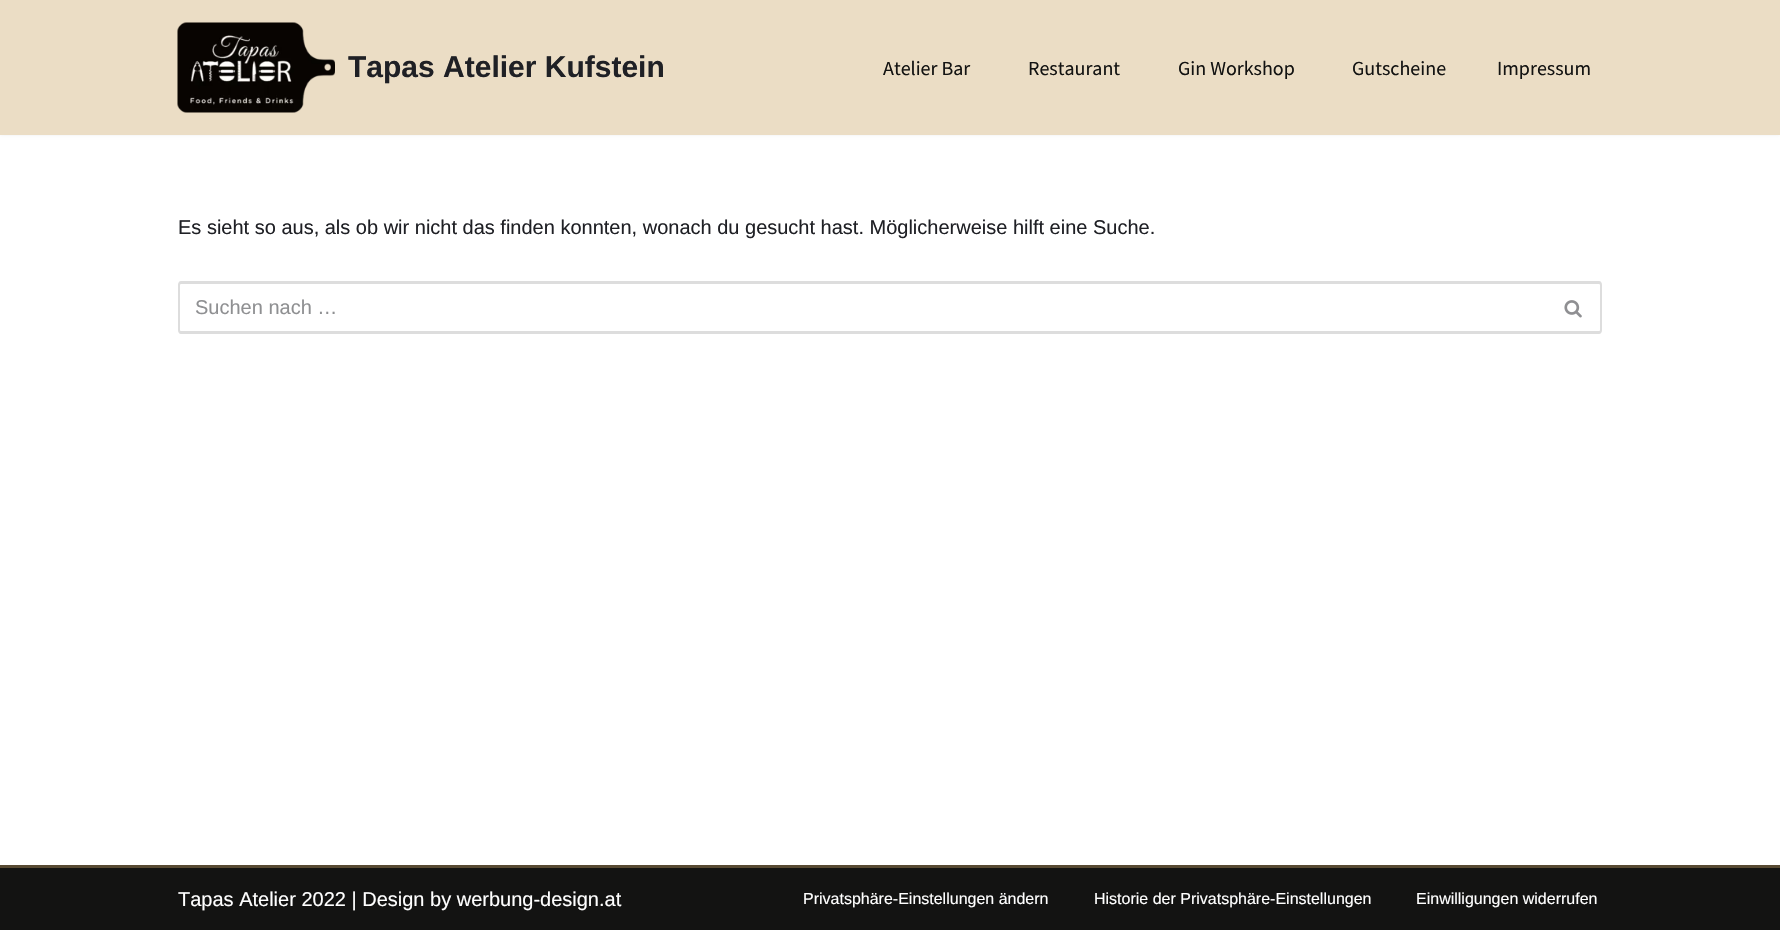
void draw(SkCanvas* canvas) {
  SkPaint paint;
  paint.setAntiAlias(true);
  auto face = [&](const char* family, int weight, float size, bool italic = false) {
    SkFontStyle style(weight, SkFontStyle::kNormal_Width,
      italic ? SkFontStyle::kItalic_Slant : SkFontStyle::kUpright_Slant);
    SkFont result(fontMgr->matchFamilyStyle(family, style), size);
    result.setSubpixel(true);
    return result;
  };
  auto paste = [&](const char* path, float x, float y, float w, float h) {
    auto image = SkImages::DeferredFromEncodedData(SkData::MakeFromFileName(path));
    canvas->drawImageRect(image, SkRect::MakeXYWH(x, y, w, h), SkSamplingOptions());
  };
  auto shape = [&](const char* data, bool evenOdd = false) {
    SkPath result = *SkParsePath::FromSVGString(data);
    if (evenOdd) result.setFillType(SkPathFillType::kEvenOdd);
    return result;
  };
  canvas->clear(0xffffffff);
  paint.setColor(0x1a000000);
  paint.setMaskFilter(SkMaskFilter::MakeBlur(kNormal_SkBlurStyle, 2));
  canvas->drawRect(SkRect::MakeXYWH(0, -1, 1780, 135), paint);
  paint.setMaskFilter(nullptr);
  paint.setColor(0xffebddc5);
  canvas->drawRect(SkRect::MakeXYWH(0, 0, 1780, 135), paint);
  paste("img/1.png", 177, 22, 158, 91);
  paint.setColor(0xffdddddd);
  canvas->drawPath(shape("M181 281H1546V334H181C179 334 178 332 178 330V285C178 283 179 281 181 281ZM181 284H1546V331H181C181 331 180 331 180 330V285C180 284 181 284 181 284Z", true), paint);
  canvas->drawPath(shape("M1546 281H1599C1601 281 1602 283 1602 285V330C1602 332 1601 334 1599 334H1546ZM1546 284H1599C1599 284 1600 284 1600 285V330C1600 331 1599 331 1599 331H1546Z", true), paint);
  paste("img/2.png", 1564, 300, 18, 18);
  paint.setColor(0xff131312);
  canvas->drawRect(SkRect::MakeXYWH(0, 868, 1780, 62), paint);
  paint.setColor(0xff584a32);
  canvas->drawRect(SkRect::MakeXYWH(0, 865, 1780, 3), paint);
  auto f0 = face("Liberation Sans", 700, 30);
  paint.setColor(0xff1f2025);
  canvas->drawString("Tapas Atelier Kufstein", 348, 77, f0, paint);
  auto f1 = face("Source Sans Pro", 400, 20);
  paint.setColor(0xff131312);
  {
    const struct { const char* s; float x, y; } items[] = {
      {"Atelier Bar", 883, 75},
      {"Restaurant", 1028, 75},
      {"Gin Workshop", 1178, 75},
      {"Gutscheine", 1352, 75},
      {"Impressum", 1497, 75},
    };
    for (auto [s, x, y] : items) {
      canvas->drawString(s, x, y, f1, paint);
    }
  }
  auto f2 = face("Liberation Sans", 400, 20);
  paint.setColor(0xff1f2025);
  canvas->drawString("Es sieht so aus, als ob wir nicht das finden konnten, wonach du gesucht hast. Möglicherweise hilft eine Suche.", 178, 234, f2, paint);
  paint.setColor(0xff8f9092);
  canvas->drawString("Suchen nach …", 195, 314, f2, paint);
  paint.setColor(0xffffffff);
  canvas->drawString("Tapas Atelier 2022 | Design by werbung-design.at", 178, 906, f2, paint);
  auto f3 = face("Liberation Sans", 400, 16);
  {
    const struct { const char* s; float x, y; } items[] = {
      {"Privatsphäre-Einstellungen ändern", 803, 904},
      {"Historie der Privatsphäre-Einstellungen", 1094, 904},
      {"Einwilligungen widerrufen", 1416, 904},
    };
    for (auto [s, x, y] : items) {
      canvas->drawString(s, x, y, f3, paint);
    }
  }
}
